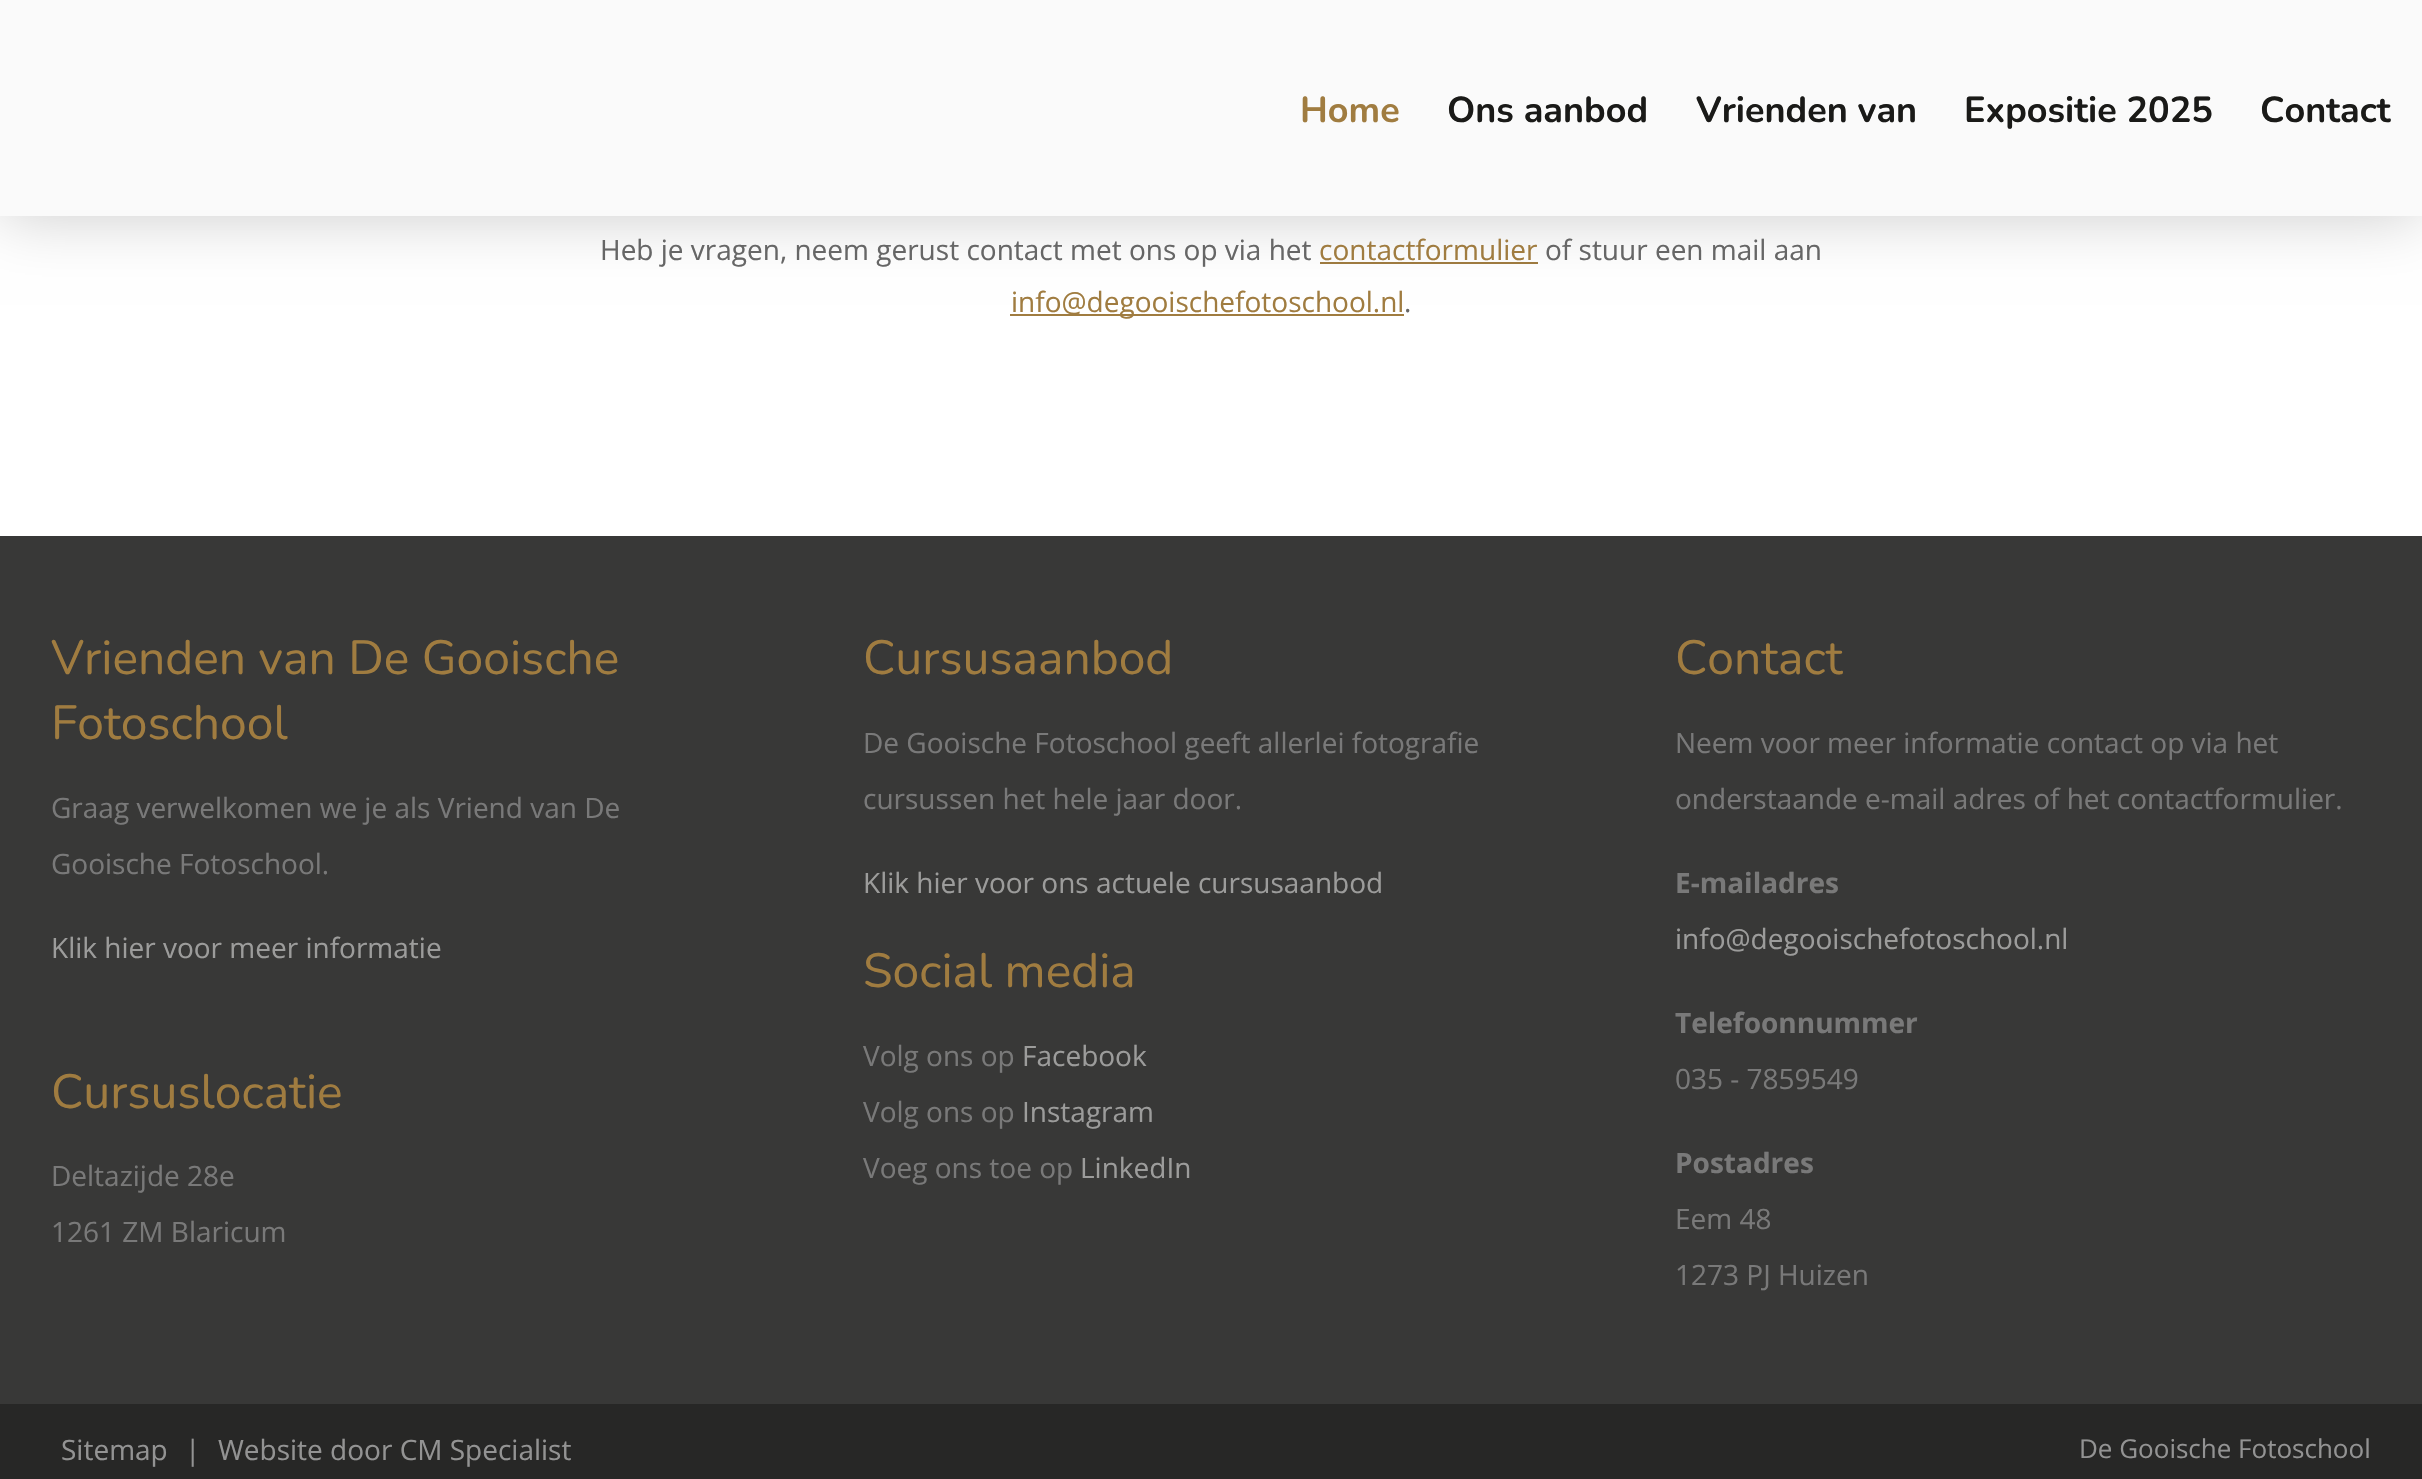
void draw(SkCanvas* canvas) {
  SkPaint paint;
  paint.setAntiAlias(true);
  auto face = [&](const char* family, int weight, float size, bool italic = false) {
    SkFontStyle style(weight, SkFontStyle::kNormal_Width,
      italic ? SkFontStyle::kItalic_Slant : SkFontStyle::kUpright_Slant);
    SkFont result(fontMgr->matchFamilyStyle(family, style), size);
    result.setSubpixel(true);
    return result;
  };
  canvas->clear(0xffffffff);
  paint.setColor(0xffa07c40);
  canvas->drawRect(SkRect::MakeXYWH(1320, 262, 218, 2), paint);
  paint.setColor(0x33000000);
  paint.setMaskFilter(SkMaskFilter::MakeBlur(kNormal_SkBlurStyle, 30));
  canvas->drawRect(SkRect::MakeXYWH(0, 0, 2422, 216), paint);
  paint.setMaskFilter(nullptr);
  {
    const struct { float x, y, w, h; SkColor color; } items[] = {
      {0, 0, 2422, 216, 0xfffafafa},
      {1010, 314, 394, 2, 0xffa07c40},
      {0, 536, 2422, 868, 0xff383837},
      {0, 1404, 2422, 75, 0xff272726},
    };
    for (auto [x, y, w, h, color] : items) {
      paint.setColor(color);
      canvas->drawRect(SkRect::MakeXYWH(x, y, w, h), paint);
    }
  }
  auto f0 = face("Nunito", 700, 36);
  paint.setColor(0xffa07c40);
  canvas->drawString("Home", 1300, 122, f0, paint);
  paint.setColor(0xff1a1a18);
  {
    const struct { const char* s; float x, y; } items[] = {
      {"Ons aanbod", 1447, 122},
      {"Vrienden van", 1696, 122},
      {"Expositie 2025", 1964, 122},
      {"Contact", 2260, 122},
    };
    for (auto [s, x, y] : items) {
      canvas->drawString(s, x, y, f0, paint);
    }
  }
  auto f1 = face("Open Sans", 400, 28);
  paint.setColor(0xff666666);
  canvas->drawString("Heb je vragen, neem gerust contact met ons op via het", 600, 260, f1, paint);
  paint.setColor(0xffa07c40);
  canvas->drawString("contactformulier", 1319, 260, f1, paint);
  paint.setColor(0xff666666);
  canvas->drawString("of stuur een mail aan", 1545, 260, f1, paint);
  paint.setColor(0xffa07c40);
  canvas->drawString("info@degooischefotoschool.nl", 1011, 312, f1, paint);
  paint.setColor(0xff666666);
  canvas->drawString(".", 1404, 312, f1, paint);
  auto f2 = face("Nunito", 400, 48);
  paint.setColor(0xffa07c40);
  canvas->drawString("Vrienden van De Gooische", 51, 674, f2, paint);
  canvas->drawString("Fotoschool", 51, 739, f2, paint);
  paint.setColor(0xff797979);
  canvas->drawString("Graag verwelkomen we je als Vriend van De", 51, 818, f1, paint);
  canvas->drawString("Gooische Fotoschool.", 51, 874, f1, paint);
  paint.setColor(0xff9c9c9b);
  canvas->drawString("Klik hier voor meer informatie", 51, 958, f1, paint);
  paint.setColor(0xffa07c40);
  canvas->drawString("Cursuslocatie", 51, 1108, f2, paint);
  paint.setColor(0xff797979);
  canvas->drawString("Deltazijde 28e", 51, 1186, f1, paint);
  canvas->drawString("1261 ZM Blaricum", 51, 1242, f1, paint);
  paint.setColor(0xffa07c40);
  canvas->drawString("Cursusaanbod", 863, 674, f2, paint);
  paint.setColor(0xff797979);
  canvas->drawString("De Gooische Fotoschool geeft allerlei fotografie", 863, 753, f1, paint);
  canvas->drawString("cursussen het hele jaar door.", 863, 809, f1, paint);
  paint.setColor(0xff9c9c9b);
  canvas->drawString("Klik hier voor ons actuele cursusaanbod", 863, 893, f1, paint);
  paint.setColor(0xffa07c40);
  canvas->drawString("Social media", 863, 987, f2, paint);
  paint.setColor(0xff797979);
  canvas->drawString("Volg ons op", 863, 1066, f1, paint);
  paint.setColor(0xff9c9c9b);
  canvas->drawString("Facebook", 1022, 1066, f1, paint);
  paint.setColor(0xff797979);
  canvas->drawString("Volg ons op", 863, 1122, f1, paint);
  paint.setColor(0xff9c9c9b);
  canvas->drawString("Instagram", 1022, 1122, f1, paint);
  paint.setColor(0xff797979);
  canvas->drawString("Voeg ons toe op", 863, 1178, f1, paint);
  paint.setColor(0xff9c9c9b);
  canvas->drawString("LinkedIn", 1080, 1178, f1, paint);
  paint.setColor(0xffa07c40);
  canvas->drawString("Contact", 1675, 674, f2, paint);
  paint.setColor(0xff797979);
  canvas->drawString("Neem voor meer informatie contact op via het", 1675, 753, f1, paint);
  canvas->drawString("onderstaande e-mail adres of het contactformulier.", 1675, 809, f1, paint);
  auto f3 = face("Open Sans", 700, 28);
  canvas->drawString("E-mailadres", 1675, 893, f3, paint);
  paint.setColor(0xff9c9c9b);
  canvas->drawString("info@degooischefotoschool.nl", 1675, 949, f1, paint);
  paint.setColor(0xff797979);
  canvas->drawString("Telefoonnummer", 1675, 1033, f3, paint);
  canvas->drawString("035 - 7859549", 1675, 1089, f1, paint);
  canvas->drawString("Postadres", 1675, 1173, f3, paint);
  canvas->drawString("Eem 48", 1675, 1229, f1, paint);
  canvas->drawString("1273 PJ Huizen", 1675, 1285, f1, paint);
  paint.setColor(0xff939393);
  {
    const struct { const char* s; float x, y; } items[] = {
      {"Sitemap", 61, 1460},
      {"|", 185, 1460},
      {"Website door CM Specialist", 218, 1460},
    };
    for (auto [s, x, y] : items) {
      canvas->drawString(s, x, y, f1, paint);
    }
  }
  auto f4 = face("Open Sans", 400, 26);
  canvas->drawString("De Gooische Fotoschool", 2079, 1458, f4, paint);
}
